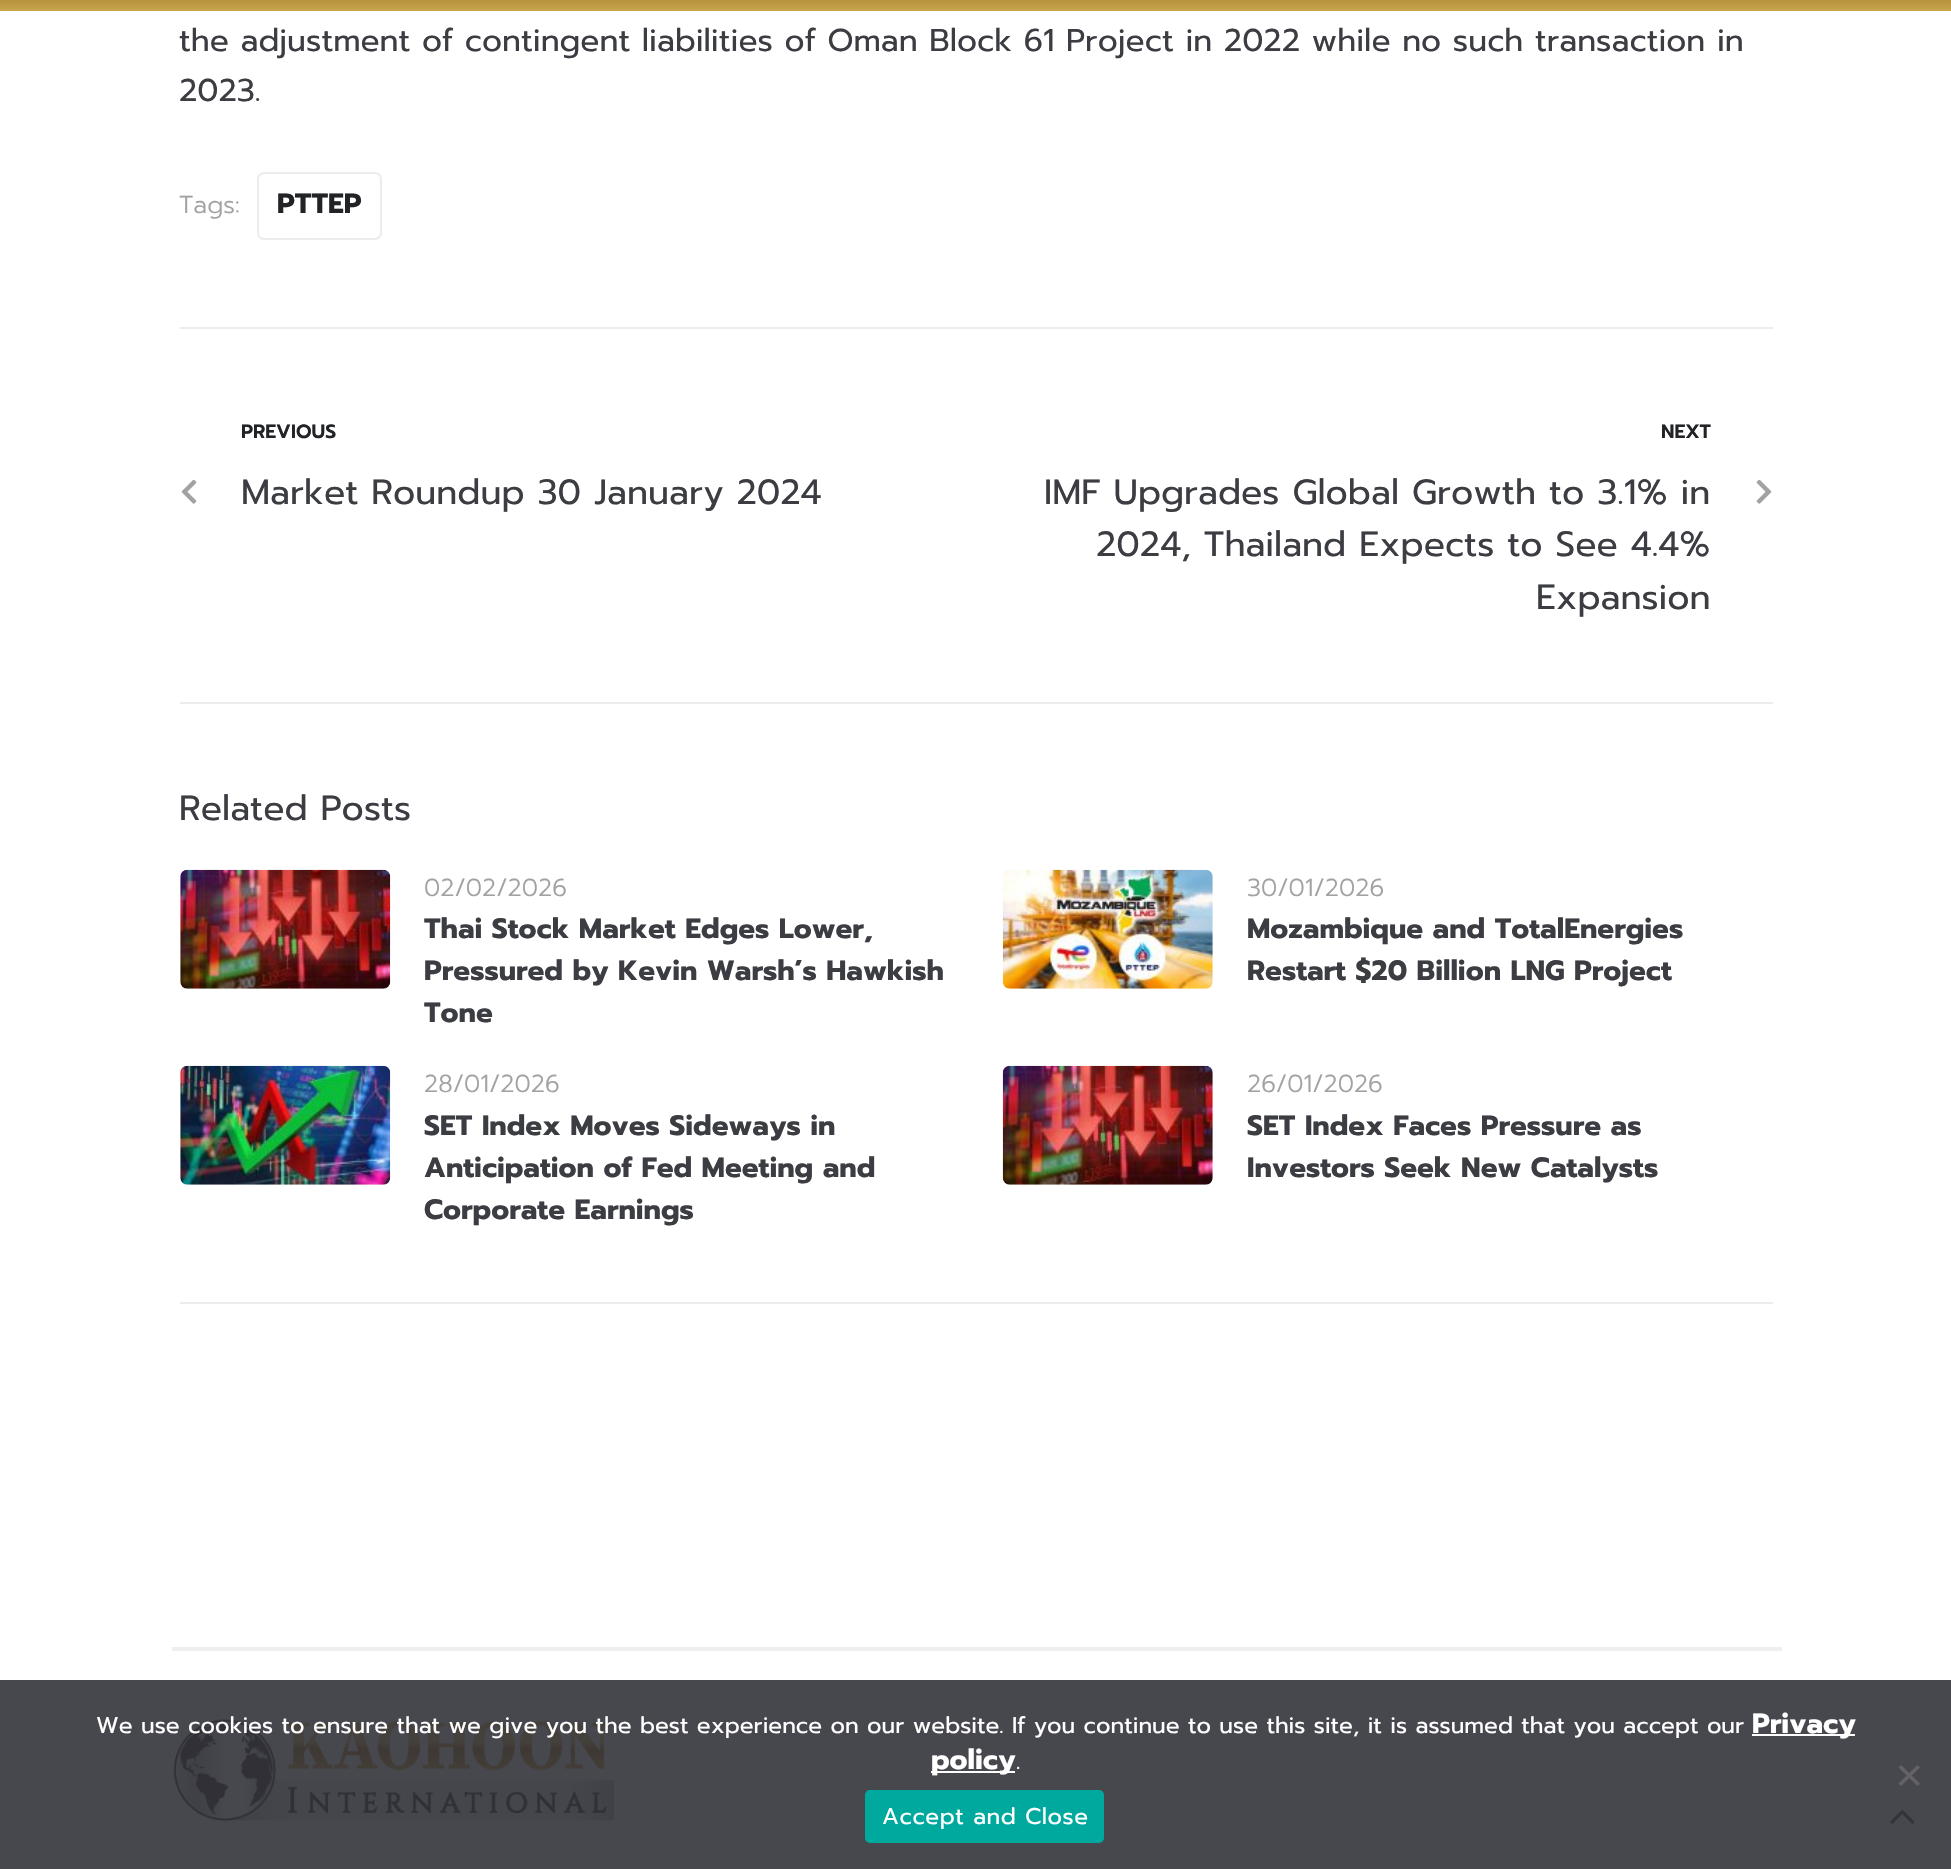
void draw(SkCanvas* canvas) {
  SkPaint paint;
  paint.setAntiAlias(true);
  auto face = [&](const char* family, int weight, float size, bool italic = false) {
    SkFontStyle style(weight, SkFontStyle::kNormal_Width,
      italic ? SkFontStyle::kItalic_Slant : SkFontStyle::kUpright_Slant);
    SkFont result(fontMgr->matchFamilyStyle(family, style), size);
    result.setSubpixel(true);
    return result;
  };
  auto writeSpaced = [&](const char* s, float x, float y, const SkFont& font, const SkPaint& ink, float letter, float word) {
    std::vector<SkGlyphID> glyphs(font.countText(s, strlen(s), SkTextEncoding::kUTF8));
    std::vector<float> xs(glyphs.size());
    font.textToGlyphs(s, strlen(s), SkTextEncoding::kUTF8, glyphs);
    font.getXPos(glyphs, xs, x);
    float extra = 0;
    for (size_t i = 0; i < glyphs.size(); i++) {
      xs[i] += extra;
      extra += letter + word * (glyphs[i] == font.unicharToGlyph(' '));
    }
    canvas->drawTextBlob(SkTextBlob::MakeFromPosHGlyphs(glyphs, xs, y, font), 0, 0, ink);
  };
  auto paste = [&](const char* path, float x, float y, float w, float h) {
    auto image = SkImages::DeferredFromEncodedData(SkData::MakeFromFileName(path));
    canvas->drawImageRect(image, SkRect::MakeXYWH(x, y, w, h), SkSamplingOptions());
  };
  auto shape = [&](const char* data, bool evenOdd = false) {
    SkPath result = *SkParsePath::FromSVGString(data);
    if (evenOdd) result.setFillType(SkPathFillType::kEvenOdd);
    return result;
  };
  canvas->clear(0xffffffff);
  paint.setColor(0xff47474e);
  canvas->drawRect(SkRect::MakeXYWH(0, 1680, 1951, 189), paint);
  paint.setColor(0xffc7aa61);
  canvas->drawRect(SkRect::MakeXYWH(0, 0, 1951, 11), paint);
  {
    const SkColor colors[] = {0x80996909, 0x80d8b345};
    const float stops[] = {0, 1};
    const SkPoint ends[] = {{976, -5.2f}, {976, 16}};
    paint.setShader(SkGradientShader::MakeLinear(ends, colors, stops, 2, SkTileMode::kClamp));
    paint.setAlpha(255);
  }
  canvas->drawRect(SkRect::MakeXYWH(0, 0, 1951, 11), paint);
  paint.setShader(nullptr);
  paint.setColor(0xffebeced);
  canvas->drawRect(SkRect::MakeXYWH(180, 327, 1593, 2), paint);
  paint.setStroke(true);
  paint.setStrokeWidth(2);
  canvas->drawRoundRect(SkRect::MakeXYWH(258, 173, 123, 66), 6, 6, paint);
  paint.setStroke(false);
  canvas->drawRect(SkRect::MakeXYWH(180, 702, 1593, 2), paint);
  paste("img/1.png", 181, 479, 16, 25);
  paste("img/2.png", 1756, 479, 16, 25);
  canvas->drawRect(SkRect::MakeXYWH(180, 1302, 1593, 2), paint);
  paste("img/3.png", 180, 869, 211, 120);
  paste("img/4.png", 1002, 869, 211, 120);
  paste("img/5.png", 180, 1065, 211, 120);
  paste("img/6.png", 1002, 1065, 211, 120);
  paint.setColor(0xffefefef);
  canvas->drawRect(SkRect::MakeXYWH(172, 1647, 1610, 4), paint);
  paste("img/7.png", 173, 1719, 442, 102);
  paint.setColor(0xffffffff);
  canvas->drawRect(SkRect::MakeXYWH(1752, 1734, 103, 2), paint);
  canvas->drawRect(SkRect::MakeXYWH(931, 1771, 84, 2), paint);
  paint.setColor(0xff636367);
  canvas->drawPath(shape("M1917.5 1765L1920 1767.5L1901 1786L1898.5 1783.5Z"), paint);
  canvas->drawPath(shape("M1898.5 1767.5L1901 1765L1920 1783.5L1917.5 1786Z"), paint);
  paint.setColor(0xff00a99d);
  canvas->drawRoundRect(SkRect::MakeXYWH(865, 1790, 239, 53), 5, 5, paint);
  paste("img/8.png", 1890, 1809, 25, 15);
  auto f0 = face("Prompt", 400, 31.5f);
  paint.setColor(0xff3b3d42);
  canvas->drawString("the adjustment of contingent liabilities of Oman Block 61 Project in 2022 while no such transaction in", 179, 51, f0, paint);
  canvas->drawString("2023.", 179, 101, f0, paint);
  auto f1 = face("Prompt", 300, 24.5f);
  paint.setColor(0xffa1a2a4);
  canvas->drawString("Tags:", 179, 213, f1, paint);
  auto f2 = face("Prompt", 700, 28);
  paint.setColor(0xff212326);
  canvas->drawString("PTTEP", 277, 213, f2, paint);
  auto f3 = face("Prompt", 600, 19.25f);
  canvas->drawString("PREVIOUS", 241, 438, f3, paint);
  auto f4 = face("Prompt", 400, 35);
  paint.setColor(0xff3b3d42);
  canvas->drawString("Market Roundup 30 January 2024", 241, 504, f4, paint);
  paint.setColor(0xff212326);
  canvas->drawString("NEXT", 1661, 438, f3, paint);
  paint.setColor(0xff3b3d42);
  {
    const struct { const char* s; float x, y; } items[] = {
      {"IMF Upgrades Global Growth to 3.1% in", 1044, 504},
      {"2024, Thailand Expects to See 4.4%", 1096, 556},
      {"Expansion", 1536, 609},
      {"Related Posts", 179, 820},
    };
    for (auto [s, x, y] : items) {
      canvas->drawString(s, x, y, f4, paint);
    }
  }
  paint.setColor(0xffa1a2a4);
  canvas->drawString("02/02/2026", 424, 896, f1, paint);
  paint.setColor(0xff3b3d42);
  {
    const struct { const char* s; float x, y; } items[] = {
      {"Thai Stock Market Edges Lower,", 424, 938},
      {"Pressured by Kevin Warsh’s Hawkish", 424, 980},
      {"Tone", 424, 1022},
    };
    for (auto [s, x, y] : items) {
      canvas->drawString(s, x, y, f2, paint);
    }
  }
  paint.setColor(0xffa1a2a4);
  canvas->drawString("30/01/2026", 1247, 896, f1, paint);
  paint.setColor(0xff3b3d42);
  canvas->drawString("Mozambique and TotalEnergies", 1247, 938, f2, paint);
  canvas->drawString("Restart $20 Billion LNG Project", 1247, 980, f2, paint);
  paint.setColor(0xffa1a2a4);
  canvas->drawString("28/01/2026", 424, 1092, f1, paint);
  paint.setColor(0xff3b3d42);
  {
    const struct { const char* s; float x, y; } items[] = {
      {"SET Index Moves Sideways in", 424, 1135},
      {"Anticipation of Fed Meeting and", 424, 1177},
      {"Corporate Earnings", 424, 1219},
    };
    for (auto [s, x, y] : items) {
      canvas->drawString(s, x, y, f2, paint);
    }
  }
  paint.setColor(0xffa1a2a4);
  canvas->drawString("26/01/2026", 1247, 1092, f1, paint);
  paint.setColor(0xff3b3d42);
  canvas->drawString("SET Index Faces Pressure as", 1247, 1135, f2, paint);
  canvas->drawString("Investors Seek New Catalysts", 1247, 1177, f2, paint);
  auto f5 = face("Prompt", 400, 22.75f);
  paint.setColor(0xffffffff);
  canvas->drawString("We use cookies to ensure that we give you the best experience on our website. If you continue to use this site, it is assumed that you accept our", 96, 1733, f5, paint);
  canvas->drawString("Privacy", 1752, 1733, f2, paint);
  canvas->drawString("policy", 931, 1769, f2, paint);
  canvas->drawString(".", 1016, 1769, f5, paint);
  writeSpaced("Accept and Close", 882, 1824, f5, paint, 0.5f, 0);
}
